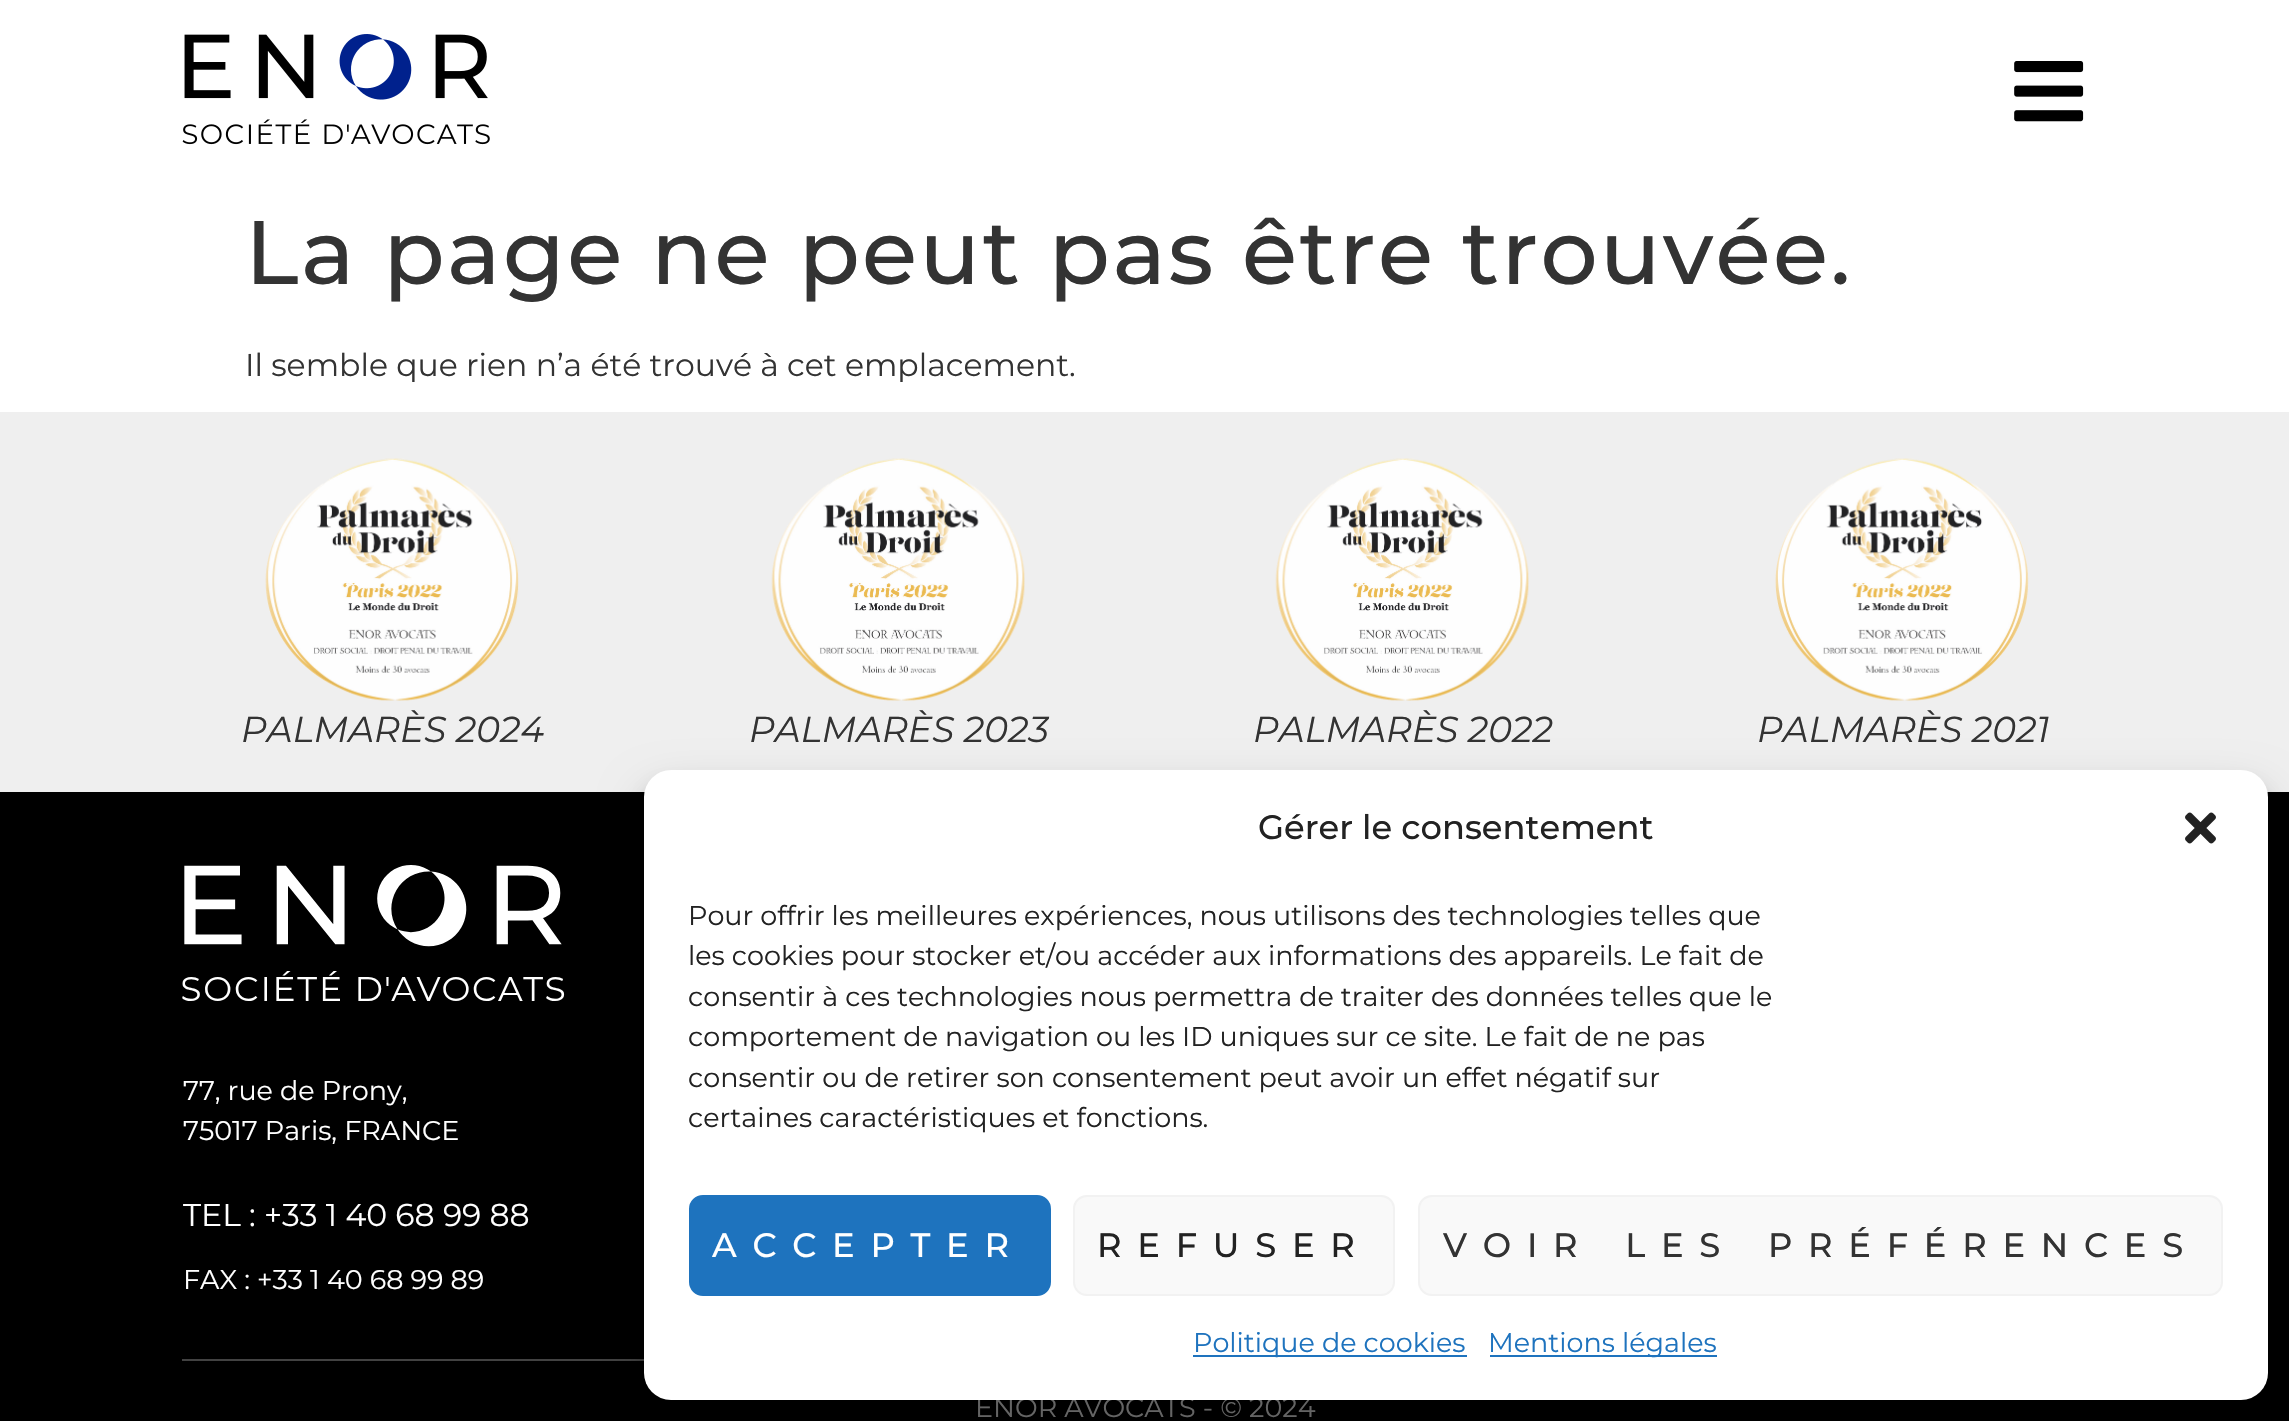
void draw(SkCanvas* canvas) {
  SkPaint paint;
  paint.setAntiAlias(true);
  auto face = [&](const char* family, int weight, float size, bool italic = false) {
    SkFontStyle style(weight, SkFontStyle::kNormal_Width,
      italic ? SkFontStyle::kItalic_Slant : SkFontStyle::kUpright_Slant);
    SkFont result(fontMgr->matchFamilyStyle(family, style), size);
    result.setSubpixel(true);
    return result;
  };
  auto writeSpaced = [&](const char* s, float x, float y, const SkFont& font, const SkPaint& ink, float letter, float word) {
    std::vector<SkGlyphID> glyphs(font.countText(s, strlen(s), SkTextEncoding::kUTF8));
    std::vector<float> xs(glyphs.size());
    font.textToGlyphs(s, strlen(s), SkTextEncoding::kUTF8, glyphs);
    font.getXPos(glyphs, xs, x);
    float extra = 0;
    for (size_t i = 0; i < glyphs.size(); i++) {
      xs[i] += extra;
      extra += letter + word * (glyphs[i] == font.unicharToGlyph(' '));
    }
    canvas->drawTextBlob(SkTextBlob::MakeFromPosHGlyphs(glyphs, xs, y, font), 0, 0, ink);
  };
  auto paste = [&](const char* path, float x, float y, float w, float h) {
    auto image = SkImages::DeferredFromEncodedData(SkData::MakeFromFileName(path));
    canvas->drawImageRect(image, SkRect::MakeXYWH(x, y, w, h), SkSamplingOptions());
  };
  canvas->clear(0xffffffff);
  paste("img/1.png", 182, 34, 308, 111);
  paste("img/2.png", 2014, 61, 70, 61);
  paint.setColor(0xffefefef);
  canvas->drawRect(SkRect::MakeXYWH(0, 412, 2289, 380), paint);
  paste("img/3.png", 265, 458, 254, 243);
  paste("img/4.png", 771, 458, 254, 243);
  paste("img/4.png", 1275, 458, 254, 243);
  paste("img/5.png", 1775, 458, 254, 243);
  paint.setColor(0xff000000);
  canvas->drawRect(SkRect::MakeXYWH(0, 792, 2289, 629), paint);
  paste("img/6.png", 182, 865, 383, 136);
  paint.setColor(0xff424242);
  canvas->drawRect(SkRect::MakeXYWH(182, 1359, 462, 2), paint);
  paint.setColor(0x3b000000);
  paint.setMaskFilter(SkMaskFilter::MakeBlur(kNormal_SkBlurStyle, 7));
  canvas->drawRoundRect(SkRect::MakeXYWH(644, 783, 1624, 630), 27, 27, paint);
  paint.setMaskFilter(nullptr);
  paint.setColor(0x30000000);
  paint.setMaskFilter(SkMaskFilter::MakeBlur(kNormal_SkBlurStyle, 22.5f));
  canvas->drawRoundRect(SkRect::MakeXYWH(644, 792, 1624, 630), 27, 27, paint);
  paint.setMaskFilter(nullptr);
  auto f0 = face("Montserrat", 500, 90);
  paint.setColor(0xff333333);
  writeSpaced("La page ne peut pas être trouvée.", 245, 284, f0, paint, 2.25f, 0);
  auto f1 = face("Montserrat", 400, 31.5f);
  canvas->drawString("Il semble que rien n’a été trouvé à cet emplacement.", 245, 376, f1, paint);
  auto f2 = face("Montserrat", 400, 36, true);
  {
    const struct { const char* s; float x, y; } items[] = {
      {"PALMARÈS 2024", 241, 742},
      {"PALMARÈS 2023", 749, 742},
      {"PALMARÈS 2022", 1253, 742},
      {"PALMARÈS 2021", 1757, 742},
    };
    for (auto [s, x, y] : items) {
      canvas->drawString(s, x, y, f2, paint);
    }
  }
  auto f3 = face("Montserrat", 400, 27);
  paint.setColor(0xffffffff);
  canvas->drawString("77, rue de Prony,", 183, 1100, f3, paint);
  canvas->drawString("75017 Paris, FRANCE", 183, 1140, f3, paint);
  canvas->drawString("TEL : +33 1 40 68 99 88", 183, 1226, f1, paint);
  canvas->drawString("FAX : +33 1 40 68 99 89", 183, 1289, f3, paint);
  paint.setColor(0xff646464);
  canvas->drawString("ENOR AVOCATS - © 2024", 975, 1417, f3, paint);
  paint.setColor(0xffffffff);
  canvas->drawRoundRect(SkRect::MakeXYWH(644, 770, 1624, 630), 27, 27, paint);
  auto f4 = face("Montserrat", 500, 33.75f);
  paint.setColor(0xff222222);
  canvas->drawString("Gérer le consentement", 1258, 839, f4, paint);
  paste("img/7.png", 2185, 812, 31, 32);
  {
    const struct { const char* s; float x, y; } items[] = {
      {"Pour offrir les meilleures expériences, nous utilisons des technologies telles que", 688, 925},
      {"les cookies pour stocker et/ou accéder aux informations des appareils. Le fait de", 688, 965},
      {"consentir à ces technologies nous permettra de traiter des données telles que le", 688, 1006},
      {"comportement de navigation ou les ID uniques sur ce site. Le fait de ne pas", 688, 1046},
      {"consentir ou de retirer son consentement peut avoir un effet négatif sur", 688, 1087},
      {"certaines caractéristiques et fonctions.", 688, 1127},
    };
    for (auto [s, x, y] : items) {
      canvas->drawString(s, x, y, f3, paint);
    }
  }
  paint.setColor(0xff1e73be);
  canvas->drawRoundRect(SkRect::MakeXYWH(690, 1196, 360, 99), 13, 13, paint);
  paint.setStroke(true);
  paint.setStrokeWidth(2);
  canvas->drawRoundRect(SkRect::MakeXYWH(690, 1196, 360, 99), 13, 13, paint);
  paint.setStroke(false);
  paint.setColor(0xffffffff);
  writeSpaced("ACCEPTER", 712, 1257, f4, paint, 15.75f, 0);
  paint.setColor(0xfff9f9f9);
  canvas->drawRoundRect(SkRect::MakeXYWH(1074, 1196, 320, 99), 13, 13, paint);
  paint.setStroke(true);
  paint.setColor(0xfff2f2f2);
  canvas->drawRoundRect(SkRect::MakeXYWH(1074, 1196, 320, 99), 13, 13, paint);
  paint.setStroke(false);
  paint.setColor(0xff222222);
  writeSpaced("REFUSER", 1097, 1257, f4, paint, 15.75f, 0);
  paint.setColor(0xfff9f9f9);
  canvas->drawRoundRect(SkRect::MakeXYWH(1419, 1196, 803, 99), 13, 13, paint);
  paint.setStroke(true);
  paint.setColor(0xfff2f2f2);
  canvas->drawRoundRect(SkRect::MakeXYWH(1419, 1196, 803, 99), 13, 13, paint);
  paint.setStroke(false);
  paint.setColor(0xff333333);
  writeSpaced("VOIR LES PRÉFÉRENCES", 1443, 1257, f4, paint, 15.75f, 7);
  paint.setColor(0xff1e73be);
  canvas->drawRect(SkRect::MakeXYWH(1193, 1355, 274, 2), paint);
  canvas->drawString("Politique de cookies", 1193, 1352, f3, paint);
  canvas->drawRect(SkRect::MakeXYWH(1490, 1355, 227, 2), paint);
  canvas->drawString("Mentions légales", 1488, 1352, f3, paint);
}
